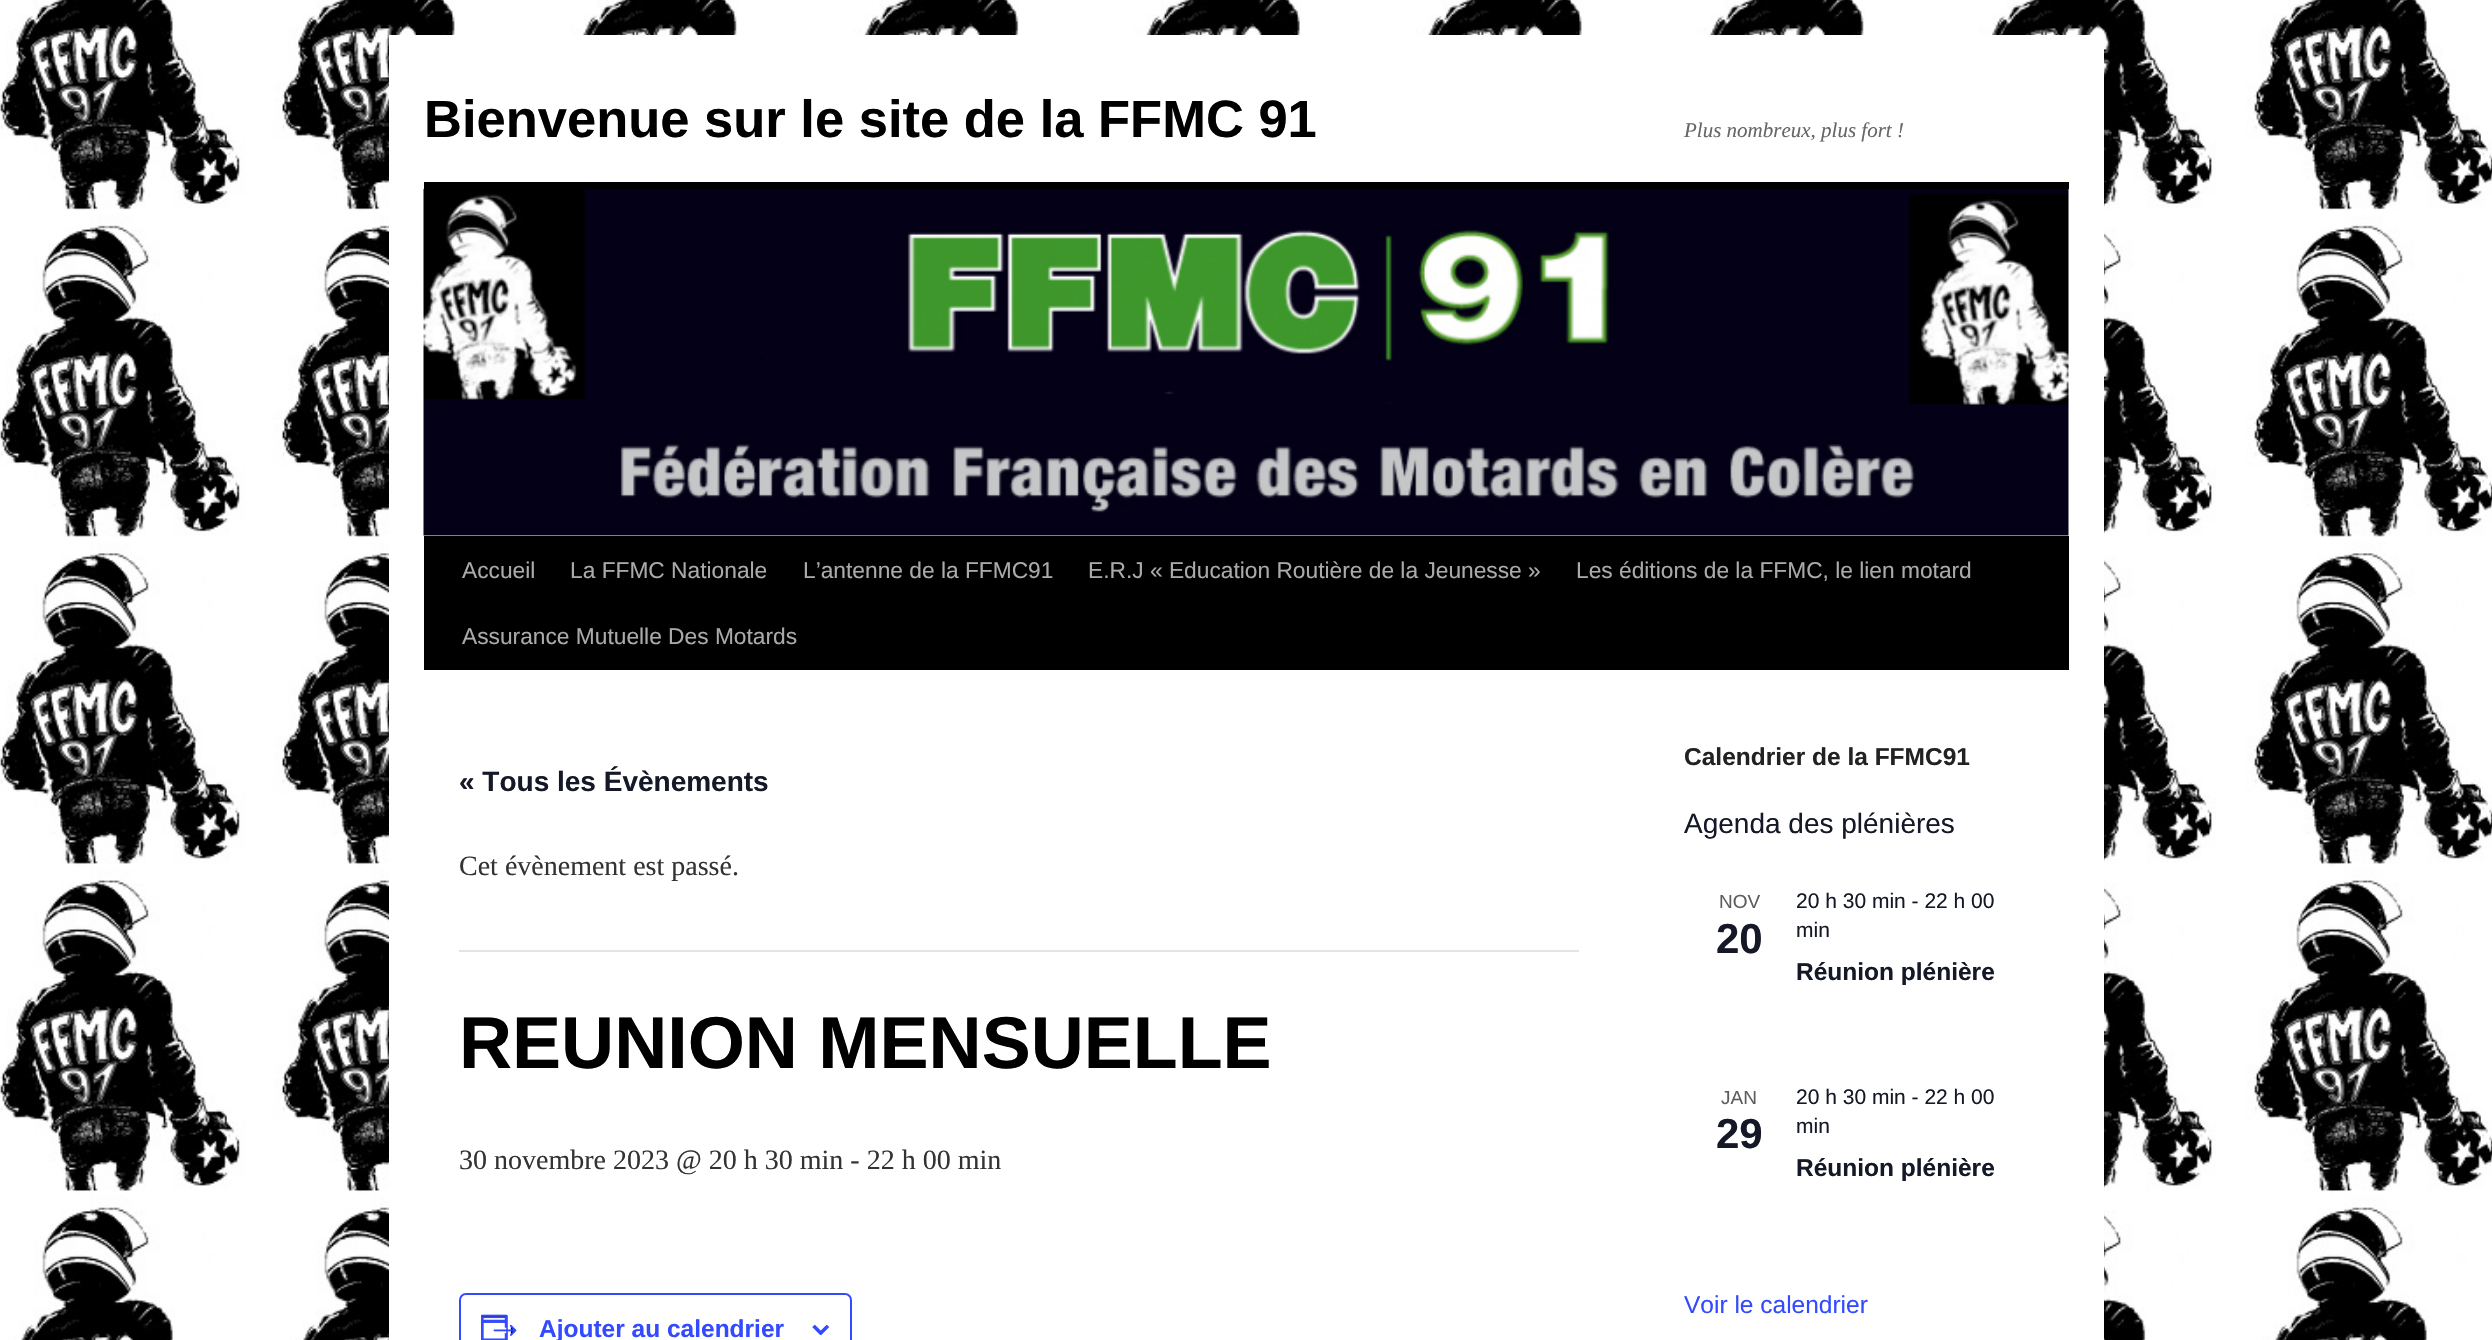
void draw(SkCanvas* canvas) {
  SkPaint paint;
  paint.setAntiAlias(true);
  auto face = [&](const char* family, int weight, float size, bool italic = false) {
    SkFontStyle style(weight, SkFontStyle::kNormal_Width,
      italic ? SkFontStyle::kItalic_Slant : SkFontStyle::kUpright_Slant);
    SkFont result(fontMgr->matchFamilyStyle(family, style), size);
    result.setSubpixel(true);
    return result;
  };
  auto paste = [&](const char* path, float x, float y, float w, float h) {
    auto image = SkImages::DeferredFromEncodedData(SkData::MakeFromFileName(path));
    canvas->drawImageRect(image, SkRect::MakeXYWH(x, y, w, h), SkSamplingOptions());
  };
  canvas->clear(0xffffffff);
  paste("img/1.png", 0, 0, 2492, 1340);
  {
    const struct { float x, y, w, h; SkColor color; } items[] = {
      {389, 35, 1715, 1305, 0xffffffff},
      {424, 182, 1645, 7, 0xff000000},
      {424, 536, 1645, 134, 0xff000000},
    };
    for (auto [x, y, w, h, color] : items) {
      paint.setColor(color);
      canvas->drawRect(SkRect::MakeXYWH(x, y, w, h), paint);
    }
  }
  paste("img/2.png", 423, 189, 1646, 347);
  paint.setColor(0xffe4e4e4);
  canvas->drawRect(SkRect::MakeXYWH(459, 950, 1120, 2), paint);
  paint.setStroke(true);
  paint.setStrokeWidth(2);
  paint.setColor(0xff334aff);
  canvas->drawRoundRect(SkRect::MakeXYWH(460, 1294, 391, 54), 6, 6, paint);
  paste("img/3.png", 481, 1314, 36, 26);
  paste("img/4.png", 812, 1325, 18, 10);
  auto f0 = face("Liberation Sans", 700, 52.5f);
  paint.setStroke(false);
  paint.setColor(0xff000000);
  canvas->drawString("Bienvenue sur le site de la FFMC 91", 424, 137, f0, paint);
  auto f1 = face("Liberation Serif", 400, 21, true);
  paint.setColor(0xff666666);
  canvas->drawString("Plus nombreux, plus fort !", 1684, 137, f1, paint);
  auto f2 = face("Liberation Sans", 400, 22.75f);
  paint.setColor(0xffaaaaaa);
  {
    const struct { const char* s; float x, y; } items[] = {
      {"Accueil", 462, 578},
      {"La FFMC Nationale", 570, 578},
      {"L’antenne de la FFMC91", 803, 578},
      {"E.R.J « Education Routière de la Jeunesse »", 1088, 578},
      {"Les éditions de la FFMC, le lien motard", 1576, 578},
      {"Assurance Mutuelle Des Motards", 462, 644},
    };
    for (auto [s, x, y] : items) {
      canvas->drawString(s, x, y, f2, paint);
    }
  }
  auto f3 = face("Liberation Sans", 700, 28);
  paint.setColor(0xff141827);
  canvas->drawString("« Tous les Évènements", 459, 791, f3, paint);
  auto f4 = face("Liberation Serif", 400, 28);
  paint.setColor(0xff333333);
  canvas->drawString("Cet évènement est passé.", 459, 875, f4, paint);
  auto f5 = face("Liberation Sans", 700, 73.5f);
  paint.setColor(0xff000000);
  canvas->drawString("REUNION MENSUELLE", 459, 1068, f5, paint);
  paint.setColor(0xff333333);
  canvas->drawString("30 novembre 2023 @ 20 h 30 min - 22 h 00 min", 459, 1169, f4, paint);
  auto f6 = face("Liberation Sans", 700, 24.5f);
  paint.setColor(0xff334aff);
  canvas->drawString("Ajouter au calendrier", 539, 1337, f6, paint);
  paint.setColor(0xff222222);
  canvas->drawString("Calendrier de la FFMC91", 1684, 765, f6, paint);
  auto f7 = face("Liberation Sans", 400, 28);
  paint.setColor(0xff141827);
  canvas->drawString("Agenda des plénières", 1684, 833, f7, paint);
  auto f8 = face("Liberation Sans", 400, 19);
  paint.setColor(0xff5d5d5d);
  canvas->drawString("NOV", 1719, 908, f8, paint);
  auto f9 = face("Liberation Sans", 700, 42);
  paint.setColor(0xff141827);
  canvas->drawString("20", 1716, 953, f9, paint);
  auto f10 = face("Liberation Sans", 400, 21);
  canvas->drawString("20 h 30 min - 22 h 00", 1796, 908, f10, paint);
  canvas->drawString("min", 1796, 937, f10, paint);
  canvas->drawString("Réunion plénière", 1796, 980, f6, paint);
  paint.setColor(0xff5d5d5d);
  canvas->drawString("JAN", 1721, 1104, f8, paint);
  paint.setColor(0xff141827);
  canvas->drawString("29", 1716, 1148, f9, paint);
  canvas->drawString("20 h 30 min - 22 h 00", 1796, 1104, f10, paint);
  canvas->drawString("min", 1796, 1133, f10, paint);
  canvas->drawString("Réunion plénière", 1796, 1176, f6, paint);
  auto f11 = face("Liberation Sans", 400, 24.5f);
  paint.setColor(0xff334aff);
  canvas->drawString("Voir le calendrier", 1684, 1313, f11, paint);
}
